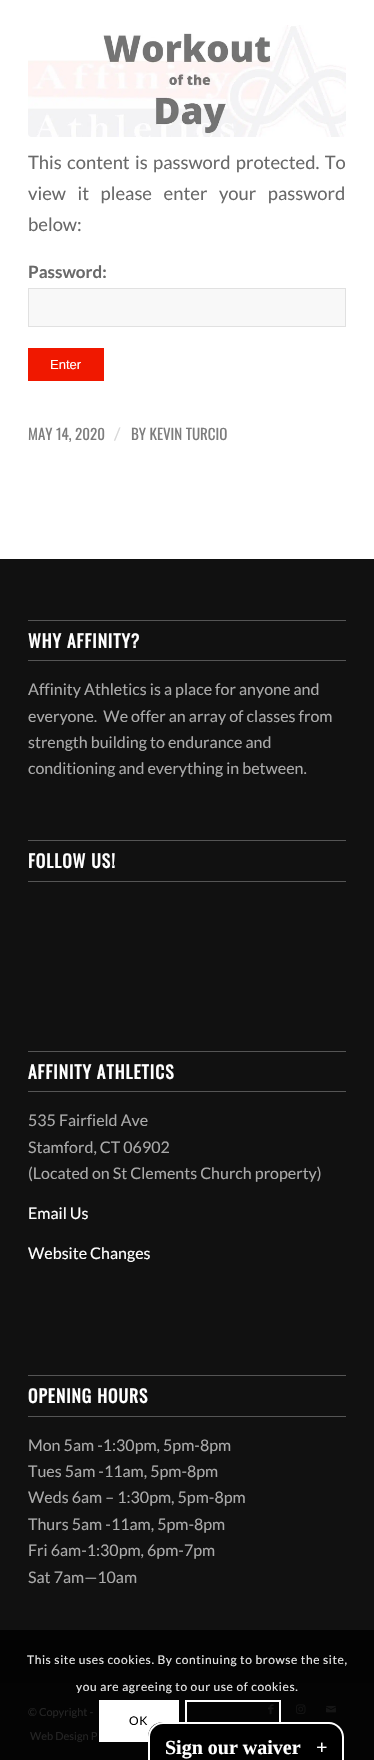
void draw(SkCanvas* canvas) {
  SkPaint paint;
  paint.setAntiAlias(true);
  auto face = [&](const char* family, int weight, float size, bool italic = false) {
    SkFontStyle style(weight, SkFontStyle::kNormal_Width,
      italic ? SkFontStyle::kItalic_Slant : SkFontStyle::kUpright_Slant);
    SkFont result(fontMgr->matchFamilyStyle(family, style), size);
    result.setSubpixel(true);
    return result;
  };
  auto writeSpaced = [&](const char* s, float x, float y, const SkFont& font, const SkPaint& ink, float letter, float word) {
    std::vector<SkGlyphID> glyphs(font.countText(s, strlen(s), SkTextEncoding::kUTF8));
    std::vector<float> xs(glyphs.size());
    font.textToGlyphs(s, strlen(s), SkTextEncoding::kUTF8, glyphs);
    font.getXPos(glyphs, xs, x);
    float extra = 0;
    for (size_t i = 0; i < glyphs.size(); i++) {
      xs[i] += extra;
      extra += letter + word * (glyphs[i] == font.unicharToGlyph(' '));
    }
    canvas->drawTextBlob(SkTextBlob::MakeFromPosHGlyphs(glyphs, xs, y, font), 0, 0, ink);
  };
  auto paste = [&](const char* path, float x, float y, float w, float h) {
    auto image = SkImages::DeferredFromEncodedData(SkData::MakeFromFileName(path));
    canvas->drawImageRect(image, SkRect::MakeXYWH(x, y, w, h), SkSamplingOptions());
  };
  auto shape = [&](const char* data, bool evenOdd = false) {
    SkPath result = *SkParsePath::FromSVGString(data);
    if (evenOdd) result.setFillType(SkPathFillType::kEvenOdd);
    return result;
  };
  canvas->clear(0xffffffff);
  paste("img/1.png", 28, 25, 318, 112);
  paint.setColor(0xfff8f8f8);
  canvas->drawRect(SkRect::MakeXYWH(28.5f, 288.5f, 317, 38), paint);
  paint.setStroke(true);
  paint.setStrokeWidth(1);
  paint.setColor(0xffe1e1e1);
  canvas->drawRect(SkRect::MakeXYWH(28.5f, 288.5f, 317, 38), paint);
  paint.setStroke(false);
  {
    const struct { float x, y, w, h; SkColor color; } items[] = {
      {28, 348, 76, 33, 0xfff01800},
      {0, 559, 374, 1071, 0xff111111},
      {0, 1630, 374, 53, 0xff030303},
      {28, 620, 318, 1, 0xff555555},
      {28, 660, 318, 1, 0xff555555},
      {28, 840, 318, 1, 0xff555555},
      {28, 881, 318, 1, 0xff555555},
      {28, 1051, 318, 1, 0xff555555},
      {28, 1091, 318, 1, 0xff555555},
      {28, 1375, 318, 1, 0xff555555},
      {28, 1416, 318, 1, 0xff555555},
      {0, 1683, 374, 77, 0xff040404},
    };
    for (auto [x, y, w, h, color] : items) {
      paint.setColor(color);
      canvas->drawRect(SkRect::MakeXYWH(x, y, w, h), paint);
    }
  }
  paste("img/2.png", 268, 1704, 6, 11);
  paste("img/3.png", 296, 1704, 10, 10);
  paste("img/4.png", 326, 1705, 10, 8);
  paint.setColor(0xffffffff);
  canvas->drawRect(SkRect::MakeXYWH(99, 1700, 80, 42), paint);
  paint.setStroke(true);
  paint.setStrokeWidth(2);
  canvas->drawRect(SkRect::MakeXYWH(186, 1701, 94, 40), paint);
  paint.setStroke(false);
  paint.setColor(0xff000000);
  canvas->drawPath(shape("M163 1722H329C337.5 1722 344 1728.5 344 1737V1760H148V1737C148 1728.5 154.5 1722 163 1722Z"), paint);
  paint.setColor(0xffffffff);
  canvas->drawPath(shape("M163 1722H329C337 1722 344 1729 344 1737V1760H148V1737C148 1729 155 1722 163 1722ZM163 1724H329C336 1724 342 1730 342 1737V1760H150V1737C150 1730 156 1724 163 1724Z", true), paint);
  auto f0 = face("Lato", 400, 18.4f);
  paint.setColor(0xff696969);
  writeSpaced("This content is password protected. To", 28, 169, f0, paint, 0, 1.75f);
  writeSpaced("view it please enter your password", 28, 200, f0, paint, 0, 8);
  canvas->drawString("below:", 28, 231, f0, paint);
  auto f1 = face("Lato", 700, 17);
  canvas->drawString("Password:", 28, 278, f1, paint);
  auto f2 = face("Liberation Sans", 400, 13);
  paint.setColor(0xffffffff);
  canvas->drawString("Enter", 50, 369, f2, paint);
  auto f3 = face("Oswald", 400, 15);
  paint.setColor(0xff7d7d7d);
  canvas->drawString("MAY 14, 2020", 28, 440, f3, paint);
  auto f4 = face("Lato", 400, 17);
  paint.setColor(0xffd8d8d8);
  canvas->drawString("/", 114, 440, f4, paint);
  paint.setColor(0xff7d7d7d);
  canvas->drawString("BY KEVIN TURCIO", 131, 440, f3, paint);
  auto f5 = face("Oswald", 700, 17.5f);
  paint.setColor(0xffffffff);
  writeSpaced("WHY AFFINITY?", 28, 648, f5, paint, 1, 0);
  auto f6 = face("Lato", 400, 16);
  paint.setColor(0xffaaaaaa);
  {
    const struct { const char* s; float x, y; } items[] = {
      {"Affinity Athletics is a place for anyone and", 28, 695},
      {"everyone.  We offer an array of classes from", 28, 722},
      {"strength building to endurance and", 28, 748},
      {"conditioning and everything in between.", 28, 774},
    };
    for (auto [s, x, y] : items) {
      canvas->drawString(s, x, y, f6, paint);
    }
  }
  paint.setColor(0xffffffff);
  writeSpaced("FOLLOW US!", 28, 868, f5, paint, 1, 0);
  writeSpaced("AFFINITY ATHLETICS", 28, 1079, f5, paint, 1, 0);
  paint.setColor(0xffaaaaaa);
  {
    const struct { const char* s; float x, y; } items[] = {
      {"535 Fairfield Ave", 28, 1126},
      {"Stamford, CT 06902", 28, 1153},
      {"(Located on St Clements Church property)", 28, 1179},
    };
    for (auto [s, x, y] : items) {
      canvas->drawString(s, x, y, f6, paint);
    }
  }
  paint.setColor(0xffffffff);
  canvas->drawString("Email Us", 28, 1219, f6, paint);
  canvas->drawString("Website Changes", 28, 1259, f6, paint);
  writeSpaced("OPENING HOURS", 28, 1403, f5, paint, 1, 0);
  paint.setColor(0xffaaaaaa);
  {
    const struct { const char* s; float x, y; } items[] = {
      {"Mon 5am -1:30pm, 5pm-8pm", 28, 1451},
      {"Tues 5am -11am, 5pm-8pm", 28, 1477},
      {"Weds 6am – 1:30pm, 5pm-8pm", 28, 1503},
      {"Thurs 5am -11am, 5pm-8pm", 28, 1530},
      {"Fri 6am-1:30pm, 6pm-7pm", 28, 1556},
      {"Sat 7am—10am", 28, 1583},
    };
    for (auto [s, x, y] : items) {
      canvas->drawString(s, x, y, f6, paint);
    }
  }
  auto f7 = face("Lato", 400, 11);
  paint.setColor(0xff242424);
  canvas->drawString("© Copyright -", 28, 1716, f7, paint);
  canvas->drawString("Web Design P", 30, 1740, f7, paint);
  auto f8 = face("Lato", 400, 12);
  paint.setColor(0xffe6e6e6);
  writeSpaced("This site uses cookies. By continuing to browse the site,", 27, 1664, f8, paint, 0.6f, 0);
  writeSpaced("you are agreeing to our use of cookies.", 76, 1691, f8, paint, 0.6f, 0);
  paint.setColor(0xff000000);
  writeSpaced("OK", 129, 1725, f8, paint, 0.6f, 0);
  auto f9 = face("Liberation Serif", 700, 20);
  paint.setColor(0xffffffff);
  canvas->drawString("Sign our waiver", 165, 1754, f9, paint);
  canvas->drawString("+", 316, 1754, f9, paint);
}
